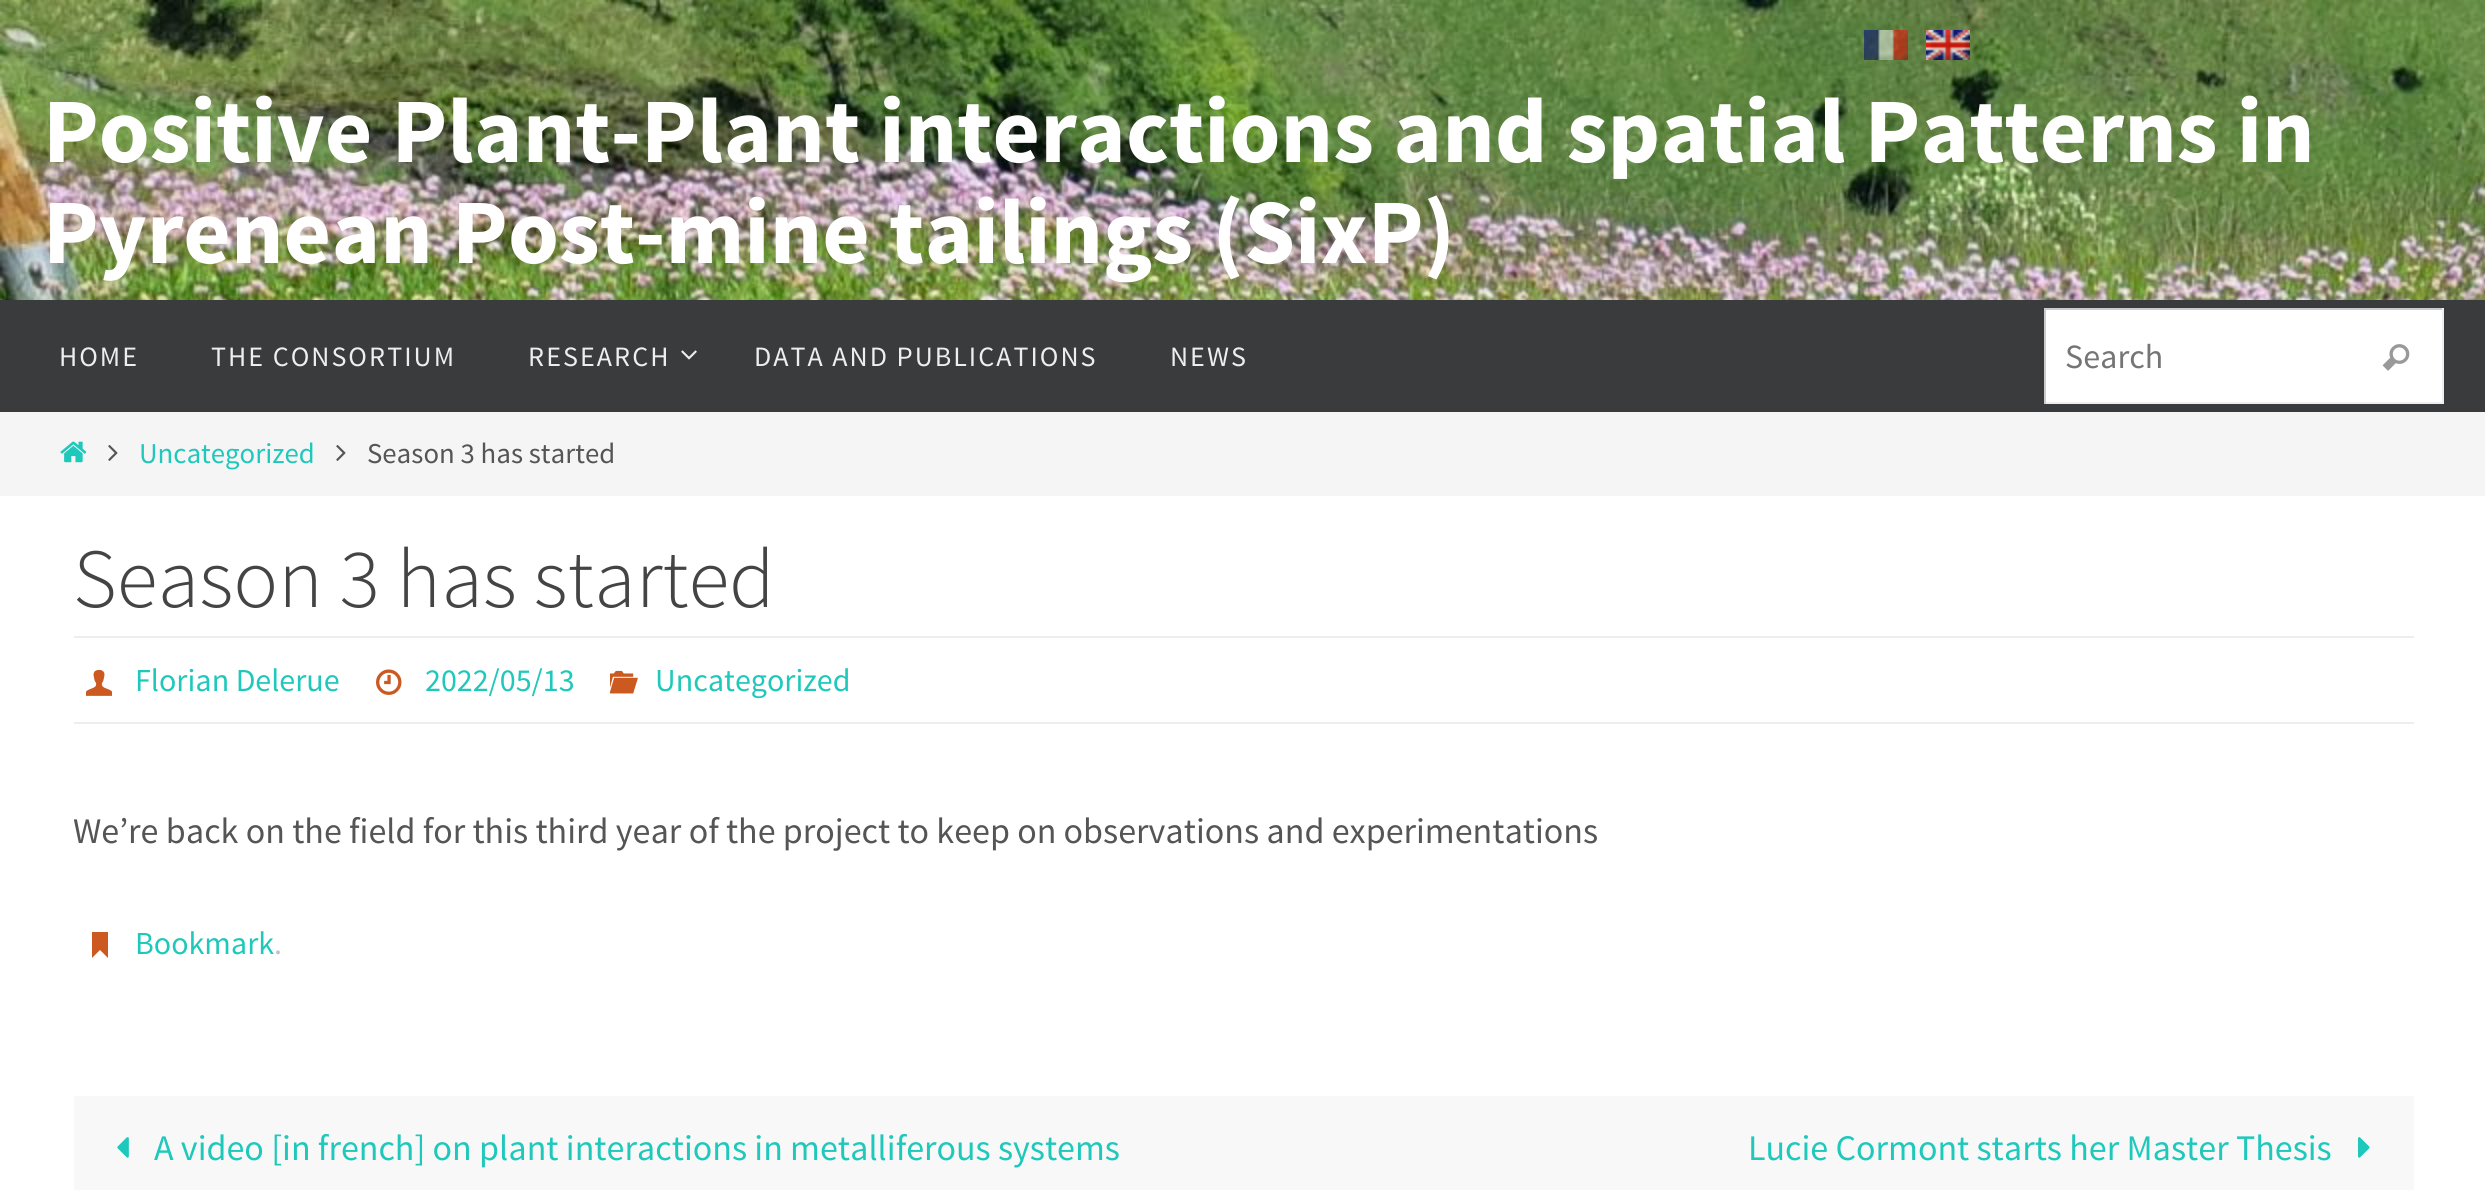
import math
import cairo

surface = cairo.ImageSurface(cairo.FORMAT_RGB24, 2485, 1190)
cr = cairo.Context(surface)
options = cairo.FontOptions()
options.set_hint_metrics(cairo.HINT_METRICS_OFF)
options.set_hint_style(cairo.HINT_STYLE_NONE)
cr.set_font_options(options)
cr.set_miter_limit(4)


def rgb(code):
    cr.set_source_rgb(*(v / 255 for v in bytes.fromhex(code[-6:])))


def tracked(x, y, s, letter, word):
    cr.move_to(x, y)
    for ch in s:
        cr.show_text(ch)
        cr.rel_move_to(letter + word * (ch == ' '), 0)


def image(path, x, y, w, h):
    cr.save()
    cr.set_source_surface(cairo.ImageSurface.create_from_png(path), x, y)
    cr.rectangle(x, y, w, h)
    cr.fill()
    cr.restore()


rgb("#ffffff")
cr.paint()
image("img/1.png", 0, 0, 2485, 300)
image("img/2.png", 1864, 30, 44, 30)
image("img/3.png", 1926, 30, 44, 30)
rgb("#3a3b3d")
cr.rectangle(0, 300, 2485, 112)
cr.fill()
image("img/4.png", 681, 350, 16, 10)
for x, y, w, h, color in [
    (2046, 310, 396, 92, "#ffffff"),
    (2044, 308, 400, 2, "#cccccc"),
    (2442, 308, 2, 96, "#eeeeee"),
    (2044, 402, 400, 2, "#eeeeee"),
    (2044, 308, 2, 96, "#cccccc"),
]:
    rgb(color)
    cr.rectangle(x, y, w, h)
    cr.fill()
image("img/5.png", 2382, 344, 28, 27)
rgb("#f5f5f5")
cr.rectangle(0, 412, 2485, 84)
cr.fill()
image("img/6.png", 60, 441, 27, 22)
image("img/7.png", 108, 445, 10, 16)
image("img/7.png", 336, 445, 10, 16)
rgb("#eeeeee")
cr.rectangle(74, 636, 2340, 2)
cr.fill()
cr.rectangle(74, 722, 2340, 2)
cr.fill()
image("img/8.png", 86, 669, 26, 27)
image("img/9.png", 376, 669, 26, 26)
image("img/10.png", 610, 670, 28, 24)
rgb("#cb5920")
cr.new_path()
cr.move_to(92, 955.5)
cr.line_to(92, 932)
cr.line_to(108, 932)
cr.line_to(108, 958)
cr.line_to(100, 950)
cr.line_to(92, 958)
cr.close_path()
cr.fill()
rgb("#f8f8f8")
cr.rectangle(74, 1096, 2340, 94)
cr.fill()
image("img/11.png", 117, 1137, 12, 21)
image("img/12.png", 2358, 1137, 12, 21)
cr.select_font_face("Source Sans Pro", cairo.FONT_SLANT_NORMAL, cairo.FONT_WEIGHT_BOLD)
cr.set_font_size(92)
rgb("#ffffff")
cr.move_to(43, 162)
cr.show_text("Positive Plant-Plant interactions and spatial Patterns in")
cr.move_to(43, 263)
cr.show_text("Pyrenean Post-mine tailings (SixP)")
cr.select_font_face("Source Sans Pro")
cr.set_font_size(28)
rgb("#eeeeee")
for x, y, s in [
    (59, 366, "HOME"),
    (211, 366, "THE CONSORTIUM"),
    (528, 366, "RESEARCH"),
    (754, 366, "DATA AND PUBLICATIONS"),
    (1170, 366, "NEWS"),
]:
    tracked(x, y, s, 2, 0)
cr.set_font_size(34)
rgb("#757575")
cr.move_to(2065, 368)
cr.show_text("Search")
cr.set_font_size(28.75)
rgb("#1ec8bb")
cr.move_to(139, 463)
cr.show_text("Uncategorized")
rgb("#555555")
cr.move_to(367, 463)
cr.show_text("Season 3 has started")
cr.select_font_face("Source Sans Pro Light")
cr.set_font_size(84)
rgb("#444444")
cr.move_to(73, 607)
cr.show_text("Season 3 has started")
cr.select_font_face("Source Sans Pro")
cr.set_font_size(32)
rgb("#1ec8bb")
for x, y, s in [
    (135, 691, "Florian Delerue"),
    (425, 691, "2022/05/13"),
    (655, 691, "Uncategorized"),
]:
    cr.move_to(x, y)
    cr.show_text(s)
cr.set_font_size(36)
rgb("#555555")
cr.move_to(73, 843)
cr.show_text("We’re back on the field for this third year of the project to keep on observations and experimentations")
cr.set_font_size(32)
rgb("#1ec8bb")
cr.move_to(135, 954)
cr.show_text("Bookmark")
rgb("#c1c1c1")
cr.move_to(274, 954)
cr.show_text(".")
cr.set_font_size(36)
rgb("#1ec8bb")
cr.move_to(154, 1160)
cr.show_text("A video [in french] on plant interactions in metalliferous systems")
cr.move_to(1748, 1160)
cr.show_text("Lucie Cormont starts her Master Thesis")
surface.write_to_png("page.png")
